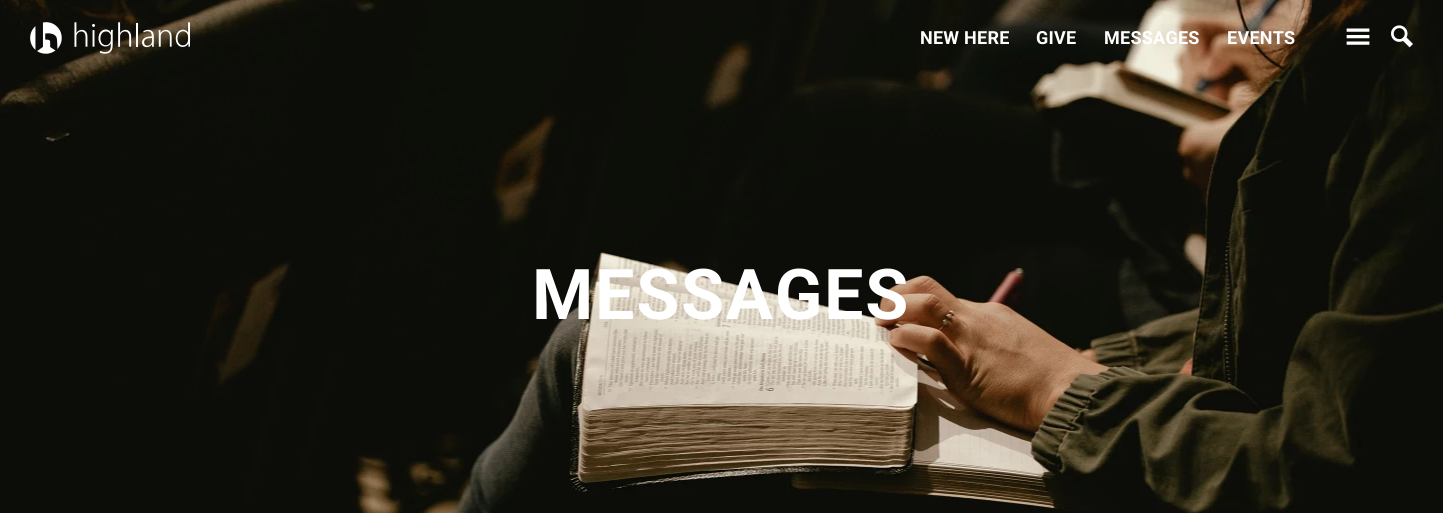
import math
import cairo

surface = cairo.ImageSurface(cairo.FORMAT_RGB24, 1443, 513)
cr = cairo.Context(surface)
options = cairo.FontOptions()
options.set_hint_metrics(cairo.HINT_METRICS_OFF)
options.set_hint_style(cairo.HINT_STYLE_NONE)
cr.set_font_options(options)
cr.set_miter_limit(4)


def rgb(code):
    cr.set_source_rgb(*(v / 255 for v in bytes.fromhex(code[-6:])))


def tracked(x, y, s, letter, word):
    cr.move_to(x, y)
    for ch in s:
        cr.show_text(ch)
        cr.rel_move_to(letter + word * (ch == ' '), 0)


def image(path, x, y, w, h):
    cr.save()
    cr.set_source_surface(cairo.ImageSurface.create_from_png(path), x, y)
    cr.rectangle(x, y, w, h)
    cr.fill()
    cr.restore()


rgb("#ffffff")
cr.paint()
image("img/4.png", 0, 0, 1443, 513)
image("img/1.png", 30, 22, 160, 32)
image("img/2.png", 1346, 28, 24, 17)
image("img/3.png", 1391, 25, 22, 23)
cr.select_font_face("Roboto", cairo.FONT_SLANT_NORMAL, cairo.FONT_WEIGHT_BOLD)
cr.set_font_size(18)
rgb("#ffffff")
for x, y, s in [
    (920, 44, "NEW HERE"),
    (1036, 44, "GIVE"),
    (1104, 44, "MESSAGES"),
    (1227, 44, "EVENTS"),
]:
    tracked(x, y, s, 0.25, 0)
cr.set_font_size(70)
tracked(532, 319, "MESSAGES", 1.75, 0)
surface.write_to_png("page.png")
